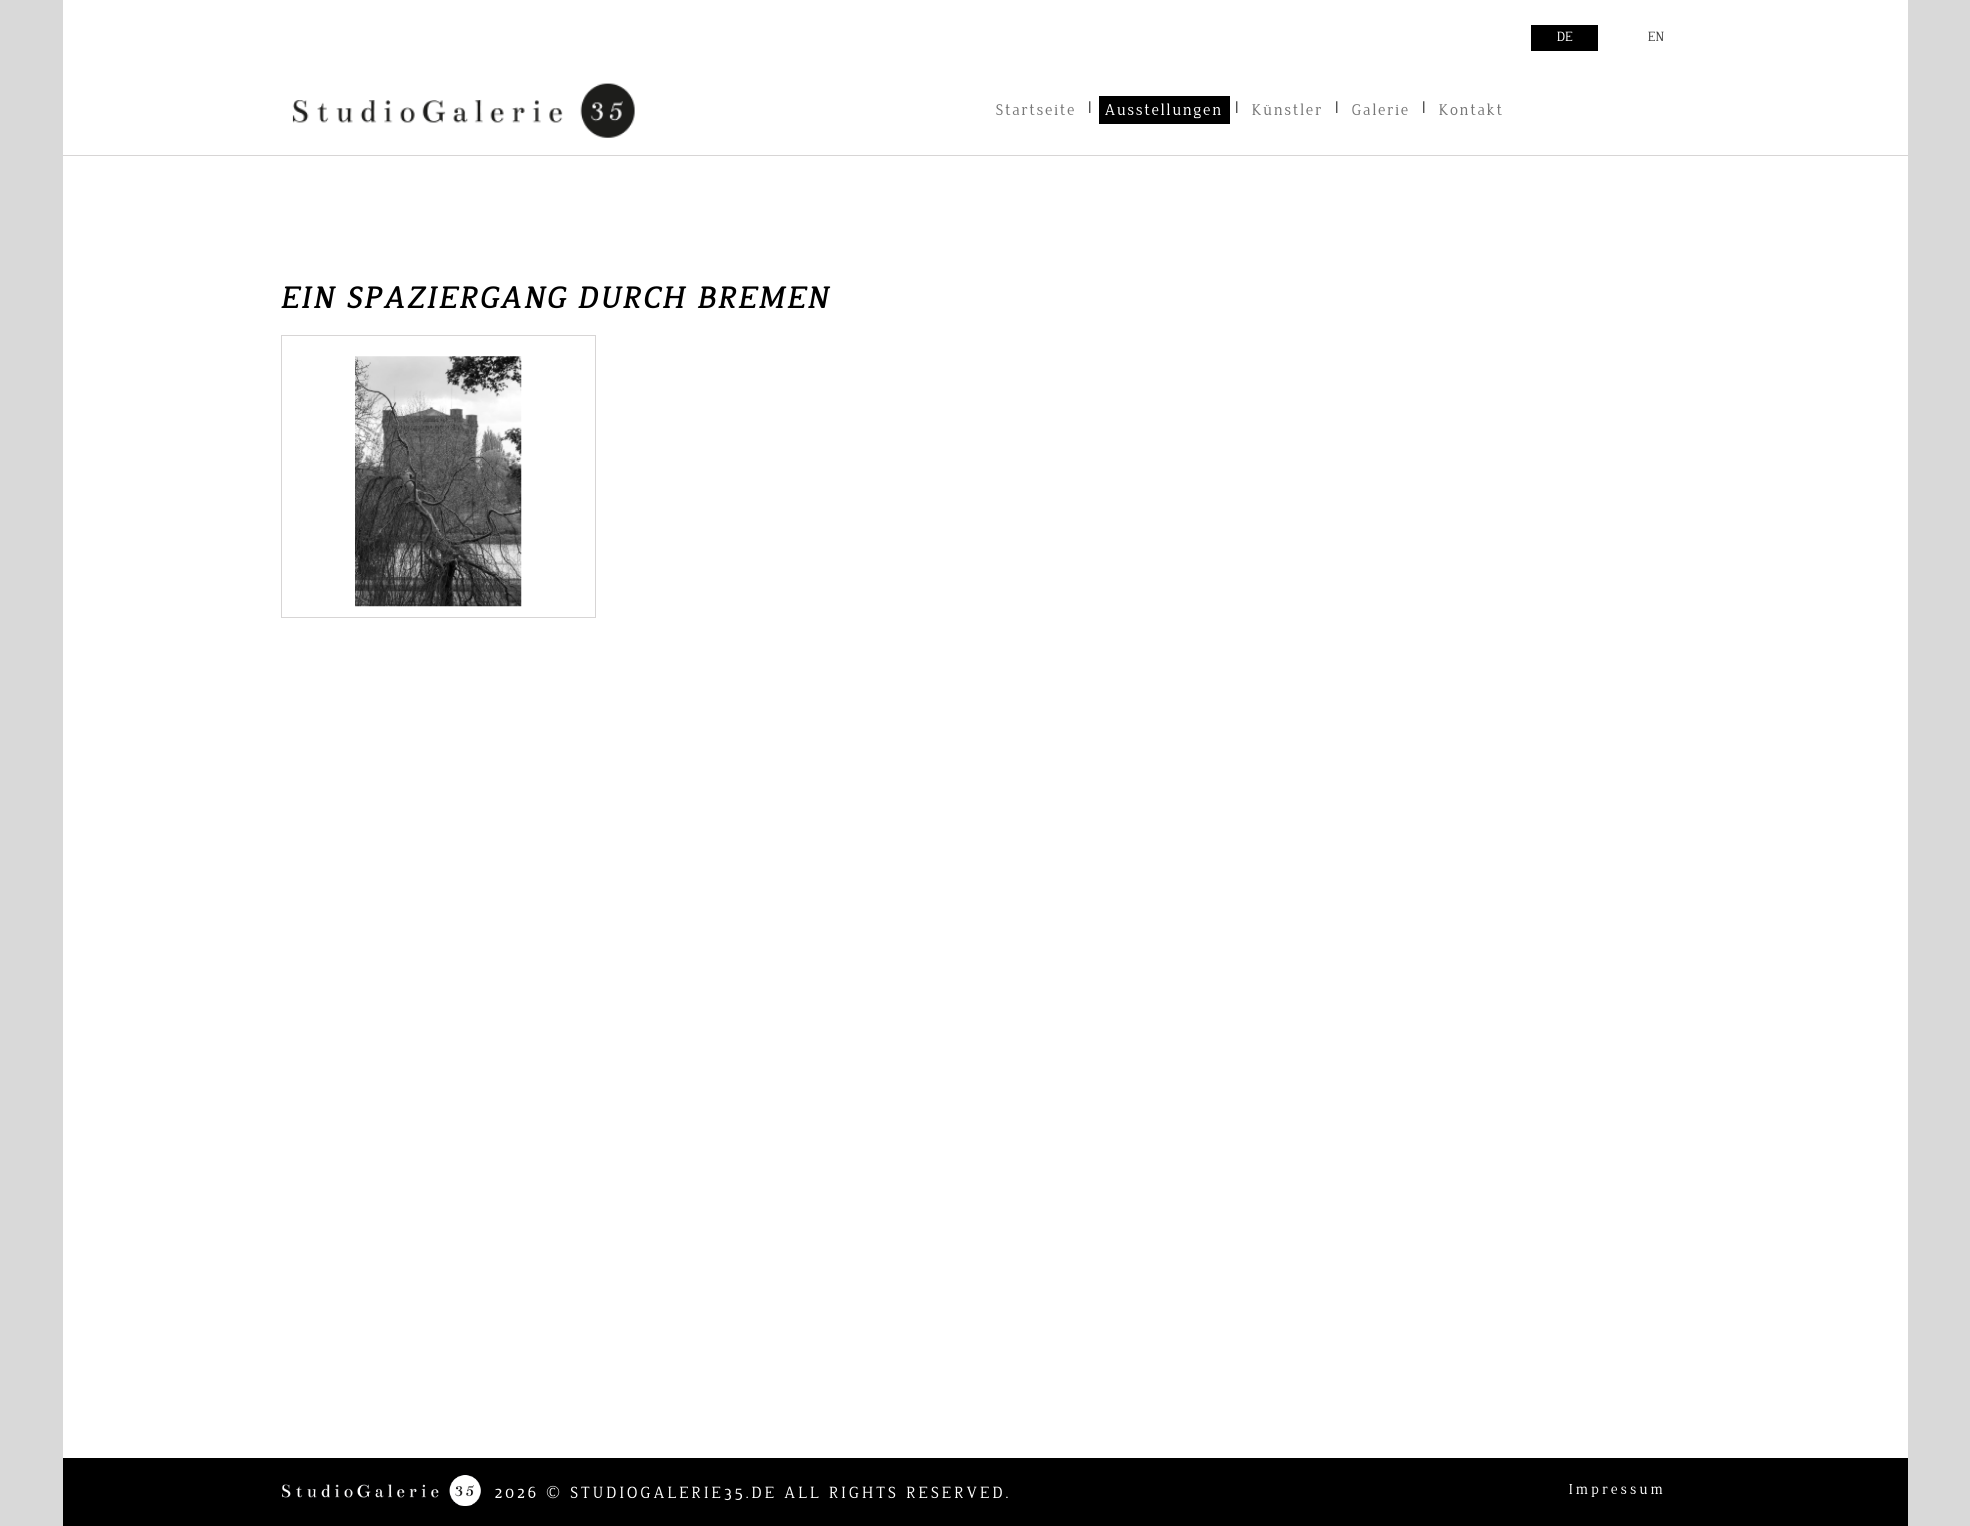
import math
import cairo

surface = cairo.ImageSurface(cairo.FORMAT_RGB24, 1970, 1526)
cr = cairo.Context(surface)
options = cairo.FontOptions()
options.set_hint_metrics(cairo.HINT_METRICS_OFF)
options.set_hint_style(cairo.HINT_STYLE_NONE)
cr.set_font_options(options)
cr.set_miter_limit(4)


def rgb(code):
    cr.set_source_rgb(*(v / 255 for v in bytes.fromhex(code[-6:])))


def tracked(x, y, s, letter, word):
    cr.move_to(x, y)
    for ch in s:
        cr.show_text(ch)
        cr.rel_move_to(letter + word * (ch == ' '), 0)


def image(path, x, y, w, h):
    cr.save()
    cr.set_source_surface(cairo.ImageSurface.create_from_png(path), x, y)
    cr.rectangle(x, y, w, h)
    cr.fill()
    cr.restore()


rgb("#d9d9d9")
cr.paint()
rgb("#ffffff")
cr.rectangle(63, 0, 1845, 1458)
cr.fill()
rgb("#000000")
cr.rectangle(1531, 25, 67, 26)
cr.fill()
image("img/1.png", 292, 83, 343, 55)
cr.rectangle(1099, 96, 131, 28)
cr.fill()
rgb("#d7d5d5")
cr.rectangle(63, 155, 1845, 1)
cr.fill()
cr.rectangle(281.5, 335.5, 314, 282)
cr.set_line_width(1)
cr.stroke()
image("img/2.png", 355, 356, 167, 251)
rgb("#000000")
cr.rectangle(63, 1458, 1845, 68)
cr.fill()
image("img/3.png", 282, 1475, 199, 31)
cr.select_font_face("Jura")
cr.set_font_size(14)
rgb("#ffffff")
cr.move_to(1557, 41)
cr.show_text("DE")
rgb("#444444")
cr.move_to(1648, 41)
cr.show_text("EN")
cr.set_font_size(16.25)
rgb("#777777")
tracked(996, 115, "Startseite", 1.6, 0)
rgb("#000000")
tracked(1089, 113, "|", 1.6, 0)
rgb("#ffffff")
tracked(1105, 115, "Ausstellungen", 1.6, 0)
rgb("#000000")
tracked(1236, 113, "|", 1.6, 0)
rgb("#777777")
tracked(1252, 115, "Künstler", 1.6, 0)
rgb("#000000")
tracked(1336, 113, "|", 1.6, 0)
rgb("#777777")
tracked(1352, 115, "Galerie", 1.6, 0)
rgb("#000000")
tracked(1423, 113, "|", 1.6, 0)
rgb("#777777")
tracked(1439, 115, "Kontakt", 1.6, 0)
cr.select_font_face("Jura", cairo.FONT_SLANT_ITALIC, cairo.FONT_WEIGHT_BOLD)
cr.set_font_size(32.5)
rgb("#000000")
tracked(281, 308, "EIN SPAZIERGANG DURCH BREMEN", 1.6, 0)
cr.select_font_face("Jura")
cr.set_font_size(17)
rgb("#ffffff")
tracked(495, 1498, "2026 © STUDIOGALERIE35.DE ALL RIGHTS RESERVED.", 3, 0)
cr.set_font_size(15)
tracked(1569, 1494, "Impressum", 3, 0)
surface.write_to_png("page.png")
